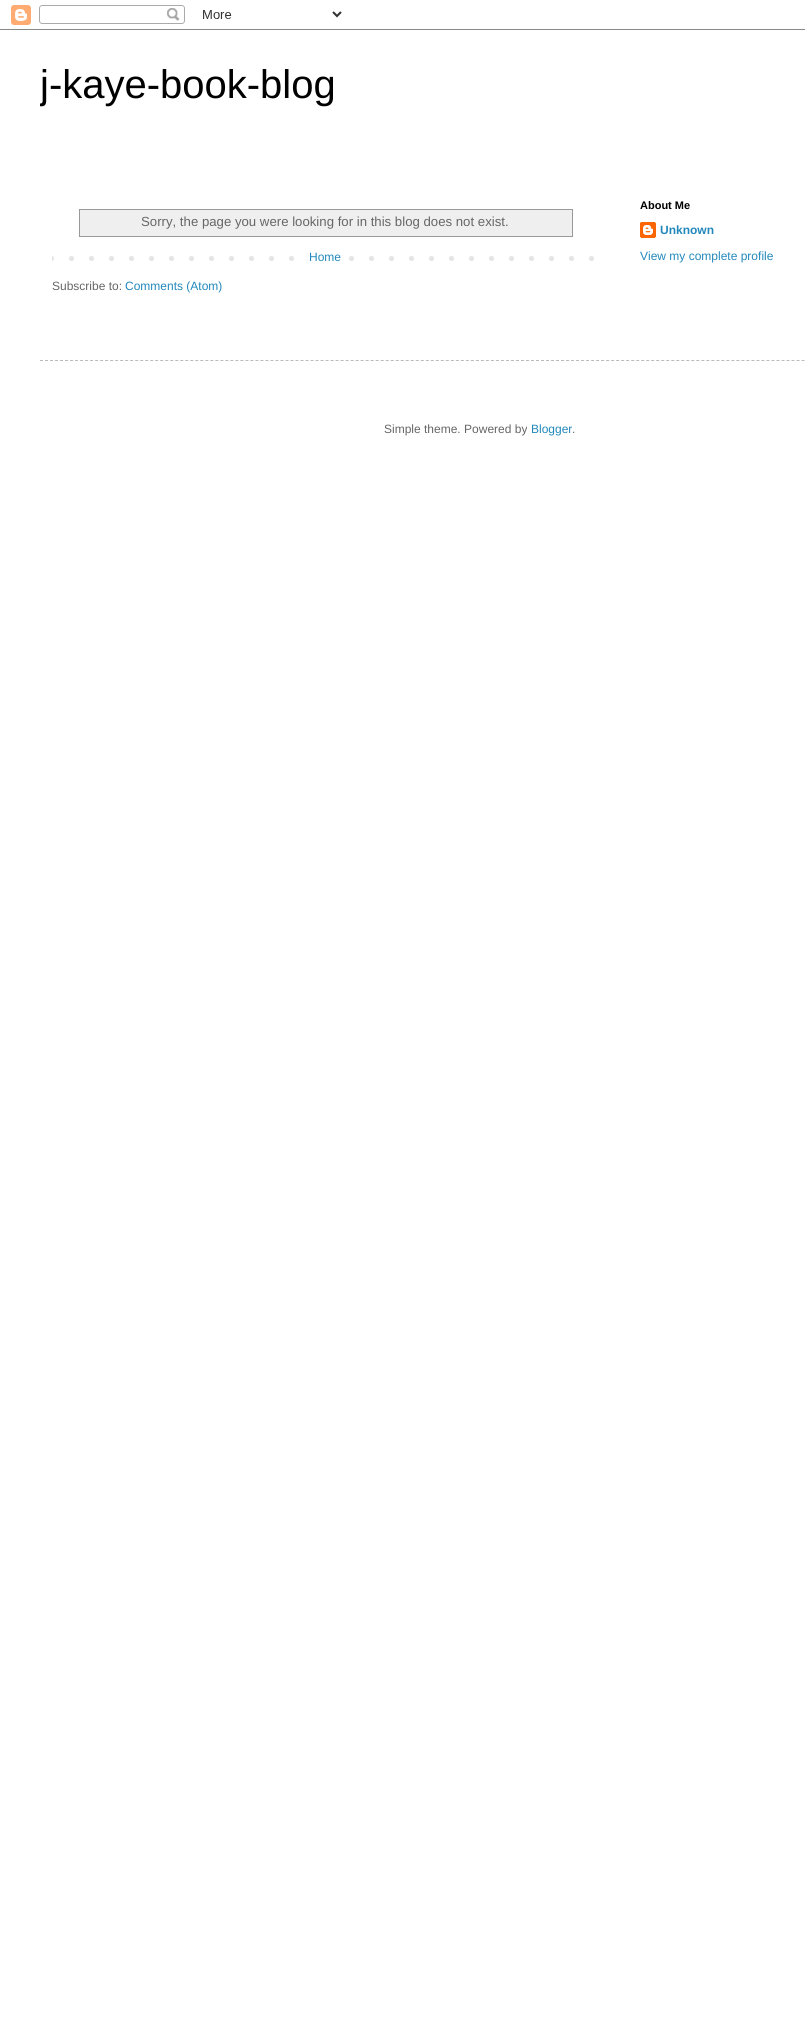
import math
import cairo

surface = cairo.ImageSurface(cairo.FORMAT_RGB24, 805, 2028)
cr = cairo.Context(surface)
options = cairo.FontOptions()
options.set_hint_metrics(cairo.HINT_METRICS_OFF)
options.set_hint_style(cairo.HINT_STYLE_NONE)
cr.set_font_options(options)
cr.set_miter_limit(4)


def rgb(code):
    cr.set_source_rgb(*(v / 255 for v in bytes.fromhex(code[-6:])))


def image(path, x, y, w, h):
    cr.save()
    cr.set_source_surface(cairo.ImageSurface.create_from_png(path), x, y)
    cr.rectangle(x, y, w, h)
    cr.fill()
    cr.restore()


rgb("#ffffff")
cr.paint()
image("img/1.png", 0, 5, 805, 25)
cr.rectangle(79.5, 209.5, 493, 27)
rgb("#999999")
cr.set_line_width(1)
cr.stroke()
rgb("#efefef")
cr.rectangle(80, 210, 492, 26)
cr.fill()
image("img/2.png", 52, 256, 542, 5)
rgb("#ffffff")
cr.rectangle(309, 256, 26, 5)
cr.fill()
image("img/3.png", 640, 222, 16, 16)
cr.new_path()
cr.move_to(40, 360.5)
cr.line_to(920, 360.5)
rgb("#bbbbbb")
cr.set_dash([3, 2.01])
cr.stroke()
cr.save()
cr.rectangle(40, 40, 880, 124)
cr.clip()
cr.select_font_face("Liberation Sans")
cr.set_font_size(40)
rgb("#000000")
cr.move_to(40, 98)
cr.show_text("j-kaye-book-blog")
cr.restore()
cr.select_font_face("Liberation Sans")
cr.set_font_size(13.2)
rgb("#666666")
cr.move_to(141, 226)
cr.show_text("Sorry, the page you were looking for in this blog does not exist.")
cr.set_font_size(12)
rgb("#2288bb")
cr.move_to(309, 261)
cr.show_text("Home")
rgb("#666666")
cr.move_to(52, 290)
cr.show_text("Subscribe to:")
rgb("#2288bb")
cr.move_to(125, 290)
cr.show_text("Comments (Atom)")
cr.select_font_face("Liberation Sans", cairo.FONT_SLANT_NORMAL, cairo.FONT_WEIGHT_BOLD)
cr.set_font_size(11)
rgb("#000000")
cr.move_to(640, 209)
cr.show_text("About Me")
cr.set_font_size(12)
rgb("#2288bb")
cr.move_to(660, 234)
cr.show_text("Unknown")
cr.select_font_face("Liberation Sans")
cr.move_to(640, 260)
cr.show_text("View my complete profile")
rgb("#666666")
cr.move_to(384, 433)
cr.show_text("Simple theme. Powered by")
rgb("#2288bb")
cr.move_to(531, 433)
cr.show_text("Blogger")
rgb("#666666")
cr.move_to(572, 433)
cr.show_text(".")
surface.write_to_png("page.png")
